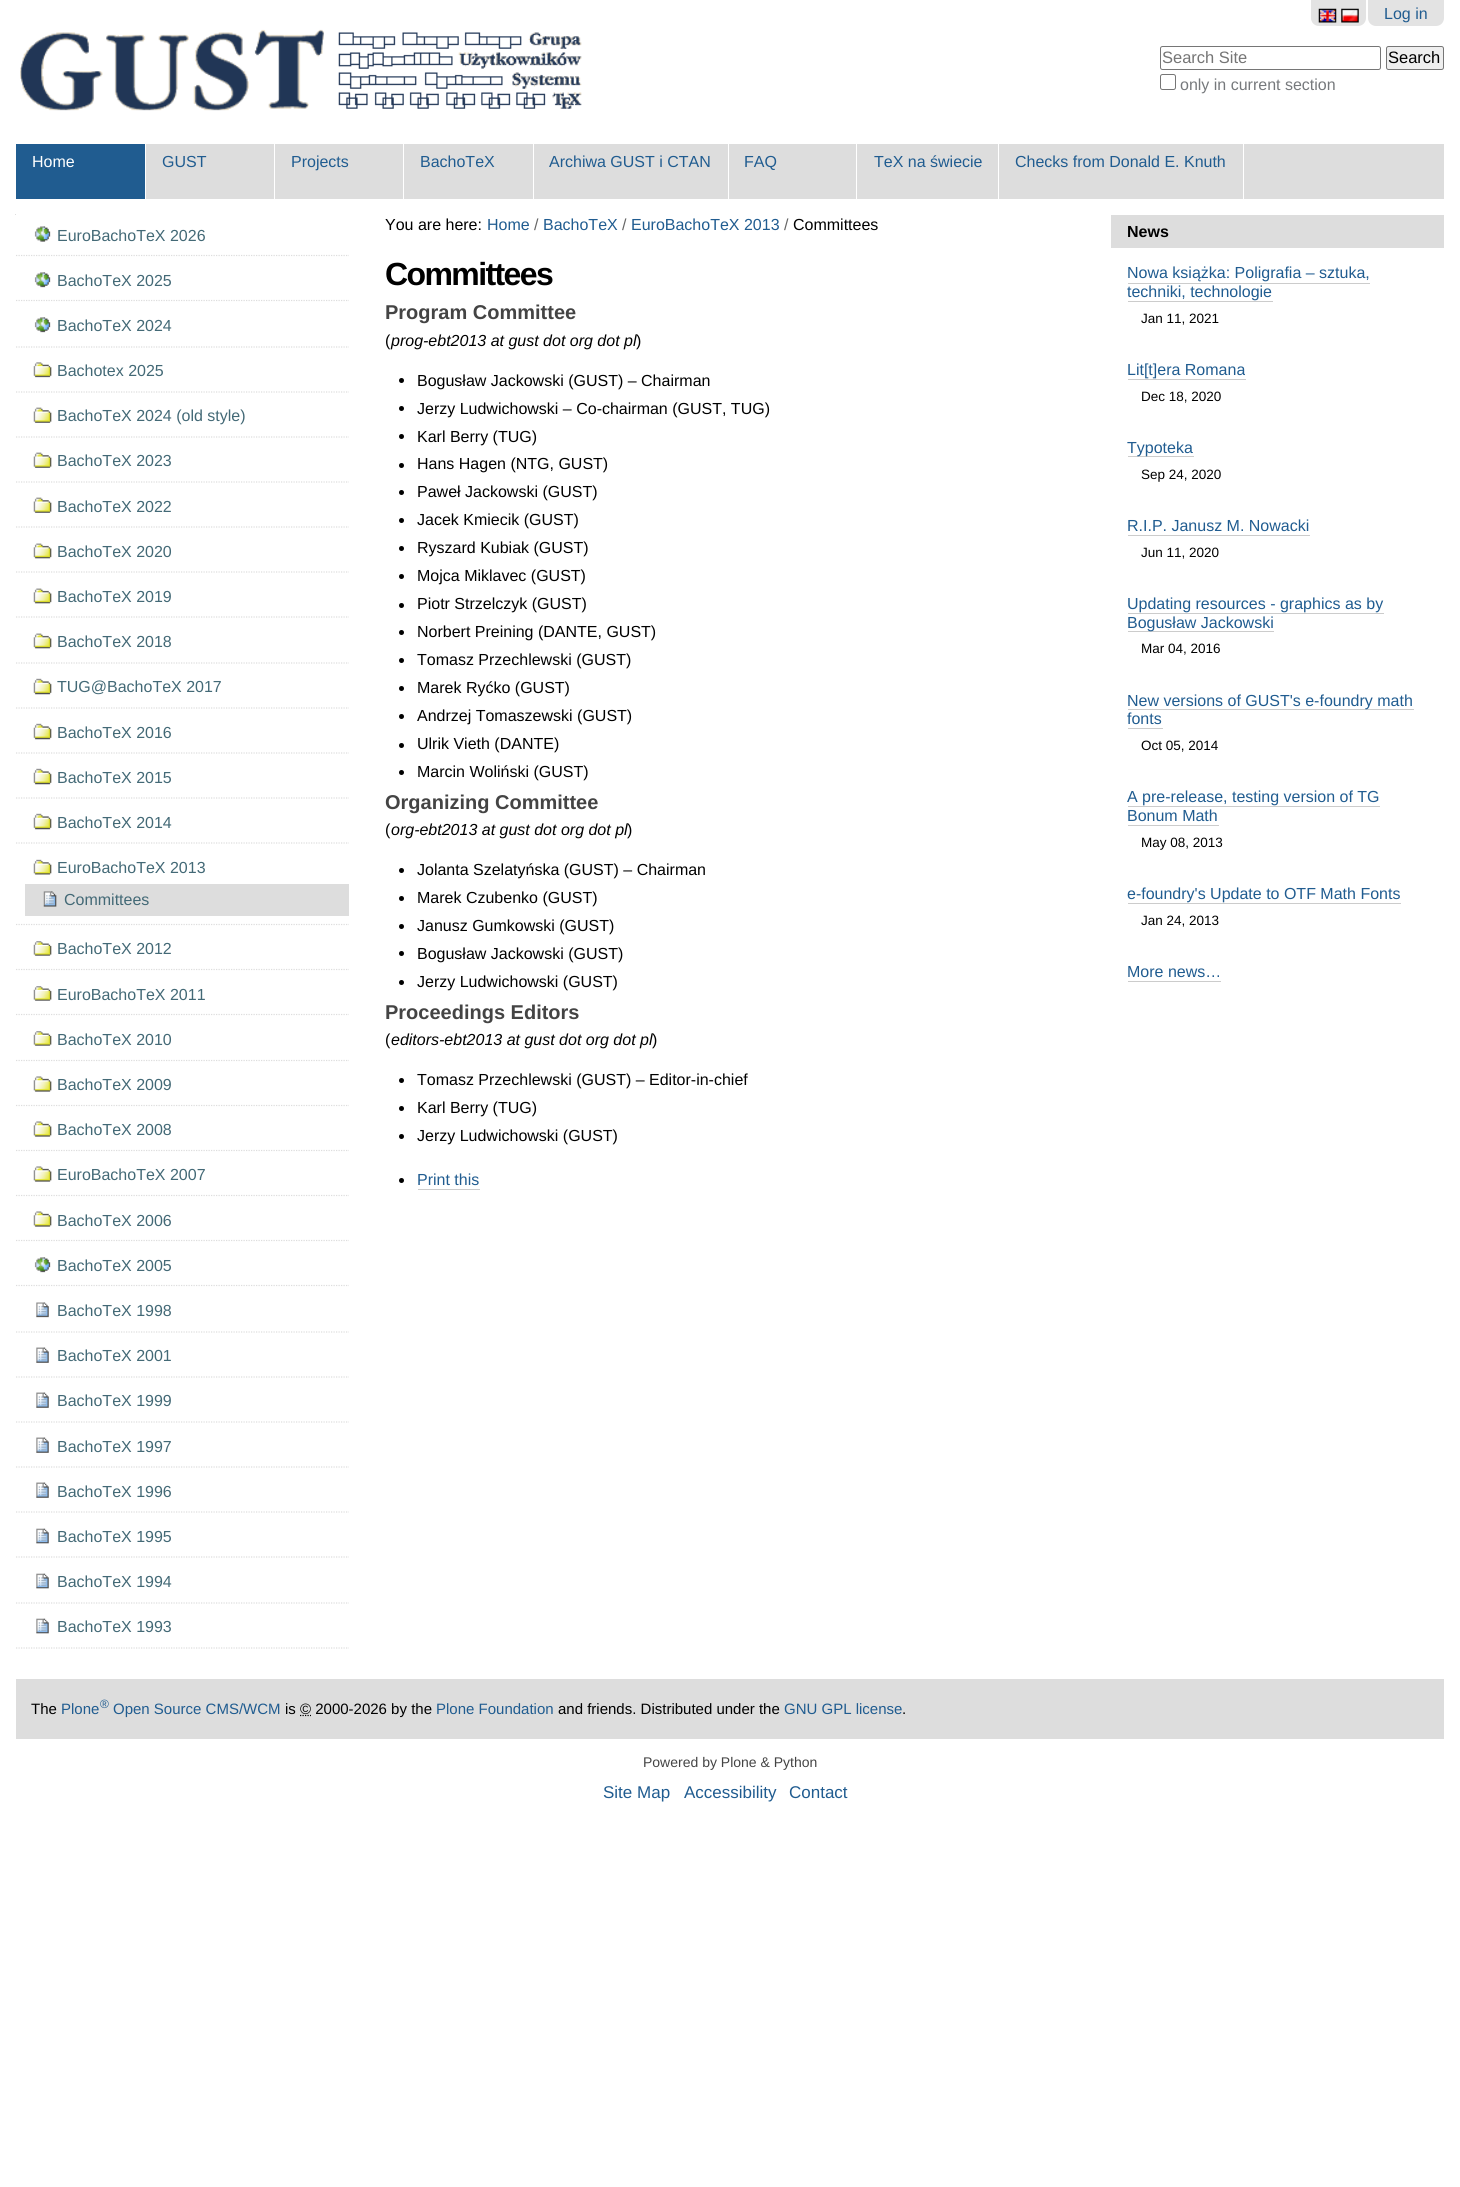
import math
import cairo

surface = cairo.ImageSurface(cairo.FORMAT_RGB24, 1460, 2187)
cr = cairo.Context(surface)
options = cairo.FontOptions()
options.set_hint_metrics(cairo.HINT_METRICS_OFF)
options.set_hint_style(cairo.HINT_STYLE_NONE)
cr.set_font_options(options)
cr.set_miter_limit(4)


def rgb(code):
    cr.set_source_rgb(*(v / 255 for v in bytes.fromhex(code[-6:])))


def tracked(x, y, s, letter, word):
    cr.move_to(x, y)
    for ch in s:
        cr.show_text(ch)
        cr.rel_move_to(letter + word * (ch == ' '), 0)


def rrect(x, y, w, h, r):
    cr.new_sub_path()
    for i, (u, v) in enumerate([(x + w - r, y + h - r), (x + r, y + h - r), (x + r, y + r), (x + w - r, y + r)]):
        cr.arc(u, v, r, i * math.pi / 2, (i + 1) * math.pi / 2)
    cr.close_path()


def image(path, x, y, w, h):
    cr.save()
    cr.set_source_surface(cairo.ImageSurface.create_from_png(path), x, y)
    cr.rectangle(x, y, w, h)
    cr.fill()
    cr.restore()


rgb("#ffffff")
cr.paint()
rgb("#e3e3e3")
cr.new_path()
cr.move_to(1311, 0)
cr.line_to(1366, 0)
cr.line_to(1366, 18)
cr.curve_to(1366, 22.5, 1362.5, 26, 1358, 26)
cr.line_to(1319, 26)
cr.curve_to(1314.5, 26, 1311, 22.5, 1311, 18)
cr.close_path()
cr.fill()
image("img/1.png", 1318, 8, 19, 15)
image("img/2.png", 1341, 8, 18, 15)
cr.new_path()
cr.move_to(1368, 0)
cr.line_to(1444, 0)
cr.line_to(1444, 18)
cr.curve_to(1444, 22.5, 1440.5, 26, 1436, 26)
cr.line_to(1376, 26)
cr.curve_to(1371.5, 26, 1368, 22.5, 1368, 18)
cr.close_path()
cr.fill()
image("img/3.png", 20, 29, 562, 82)
rrect(1160.5, 46.5, 220, 23, 2)
rgb("#767676")
cr.set_line_width(1)
cr.stroke()
rgb("#efefef")
rrect(1386.5, 46.5, 57, 23, 2)
cr.fill_preserve()
rgb("#767676")
cr.stroke()
rrect(1160.5, 74.5, 15, 15, 2)
cr.stroke()
for x, y, w, h, color in [
    (146, 144, 1298, 55, "#dddddd"),
    (16, 144, 129, 55, "#205c90"),
    (274, 144, 1, 55, "#ffffff"),
    (403, 144, 1, 55, "#ffffff"),
    (533, 144, 1, 55, "#ffffff"),
    (728, 144, 1, 55, "#ffffff"),
    (856, 144, 1, 55, "#ffffff"),
    (998, 144, 1, 55, "#ffffff"),
    (1243, 144, 1, 55, "#ffffff"),
    (15, 214, 1, 1, "#dddddd"),
]:
    rgb(color)
    cr.rectangle(x, y, w, h)
    cr.fill()
cr.new_path()
cr.move_to(16, 255.5)
cr.line_to(349, 255.5)
cr.set_line_width(1.2)
cr.set_dash([1.25, 1.25])
cr.stroke()
image("img/4.png", 34, 226, 17, 16)
cr.new_path()
cr.move_to(16, 300.5)
cr.line_to(349, 300.5)
cr.stroke()
image("img/5.png", 34, 272, 17, 16)
cr.new_path()
cr.move_to(16, 347)
cr.line_to(349, 347)
cr.stroke()
image("img/5.png", 34, 317, 17, 16)
cr.new_path()
cr.move_to(16, 392)
cr.line_to(349, 392)
cr.stroke()
image("img/6.png", 33, 362, 19, 16)
cr.new_path()
cr.move_to(16, 437)
cr.line_to(349, 437)
cr.stroke()
image("img/7.png", 33, 407, 19, 16)
cr.new_path()
cr.move_to(16, 482)
cr.line_to(349, 482)
cr.stroke()
image("img/7.png", 33, 452, 19, 16)
cr.new_path()
cr.move_to(16, 527)
cr.line_to(349, 527)
cr.stroke()
image("img/7.png", 33, 497, 19, 16)
cr.new_path()
cr.move_to(16, 572)
cr.line_to(349, 572)
cr.stroke()
image("img/8.png", 33, 543, 19, 16)
cr.new_path()
cr.move_to(16, 617)
cr.line_to(349, 617)
cr.stroke()
image("img/8.png", 33, 588, 19, 16)
cr.new_path()
cr.move_to(16, 663)
cr.line_to(349, 663)
cr.stroke()
image("img/8.png", 33, 633, 19, 16)
cr.new_path()
cr.move_to(16, 708)
cr.line_to(349, 708)
cr.stroke()
image("img/9.png", 33, 678, 19, 17)
cr.new_path()
cr.move_to(16, 753)
cr.line_to(349, 753)
cr.stroke()
image("img/9.png", 33, 723, 19, 17)
cr.new_path()
cr.move_to(16, 798)
cr.line_to(349, 798)
cr.stroke()
image("img/9.png", 33, 768, 19, 17)
cr.new_path()
cr.move_to(16, 843)
cr.line_to(349, 843)
cr.stroke()
image("img/9.png", 33, 813, 19, 17)
cr.new_path()
cr.move_to(16, 924.5)
cr.line_to(349, 924.5)
cr.stroke()
image("img/10.png", 33, 859, 19, 16)
cr.rectangle(25, 884, 324, 32)
cr.fill()
image("img/11.png", 43, 891, 14, 16)
cr.new_path()
cr.move_to(16, 969.5)
cr.line_to(349, 969.5)
cr.stroke()
image("img/12.png", 33, 941, 19, 15)
cr.new_path()
cr.move_to(16, 1014.5)
cr.line_to(349, 1014.5)
cr.stroke()
image("img/12.png", 33, 986, 19, 15)
cr.new_path()
cr.move_to(16, 1060.5)
cr.line_to(349, 1060.5)
cr.stroke()
image("img/12.png", 33, 1031, 19, 15)
cr.new_path()
cr.move_to(16, 1105.5)
cr.line_to(349, 1105.5)
cr.stroke()
image("img/13.png", 33, 1076, 19, 16)
cr.new_path()
cr.move_to(16, 1150.5)
cr.line_to(349, 1150.5)
cr.stroke()
image("img/13.png", 33, 1121, 19, 16)
cr.new_path()
cr.move_to(16, 1195.5)
cr.line_to(349, 1195.5)
cr.stroke()
image("img/13.png", 33, 1166, 19, 16)
cr.new_path()
cr.move_to(16, 1240.5)
cr.line_to(349, 1240.5)
cr.stroke()
image("img/13.png", 33, 1211, 19, 16)
cr.new_path()
cr.move_to(16, 1285.5)
cr.line_to(349, 1285.5)
cr.stroke()
image("img/5.png", 34, 1257, 17, 16)
cr.new_path()
cr.move_to(16, 1332)
cr.line_to(349, 1332)
cr.stroke()
image("img/14.png", 36, 1302, 13, 16)
cr.new_path()
cr.move_to(16, 1377)
cr.line_to(349, 1377)
cr.stroke()
image("img/15.png", 36, 1347, 13, 16)
cr.new_path()
cr.move_to(16, 1422)
cr.line_to(349, 1422)
cr.stroke()
image("img/15.png", 36, 1392, 13, 16)
cr.new_path()
cr.move_to(16, 1467)
cr.line_to(349, 1467)
cr.stroke()
image("img/15.png", 36, 1437, 13, 16)
cr.new_path()
cr.move_to(16, 1512)
cr.line_to(349, 1512)
cr.stroke()
image("img/15.png", 36, 1482, 13, 16)
cr.new_path()
cr.move_to(16, 1557)
cr.line_to(349, 1557)
cr.stroke()
image("img/16.png", 36, 1528, 13, 16)
cr.new_path()
cr.move_to(16, 1603)
cr.line_to(349, 1603)
cr.stroke()
image("img/16.png", 36, 1573, 13, 16)
cr.new_path()
cr.move_to(16, 1648)
cr.line_to(349, 1648)
cr.stroke()
image("img/16.png", 36, 1618, 13, 16)
rgb("#000000")
cr.arc(401.5, 380.5, 2.5, 0, 2 * math.pi)
cr.fill()
cr.arc(401.5, 408.5, 2.5, 0, 2 * math.pi)
cr.fill()
cr.arc(401.5, 436.5, 2.5, 0, 2 * math.pi)
cr.fill()
cr.arc(401.5, 465.5, 2.5, 0, 2 * math.pi)
cr.fill()
cr.arc(401.5, 492.5, 2.5, 0, 2 * math.pi)
cr.fill()
cr.arc(401.5, 520.5, 2.5, 0, 2 * math.pi)
cr.fill()
cr.arc(401.5, 548.5, 2.5, 0, 2 * math.pi)
cr.fill()
cr.arc(401.5, 576.5, 2.5, 0, 2 * math.pi)
cr.fill()
cr.arc(401.5, 605.5, 2.5, 0, 2 * math.pi)
cr.fill()
cr.arc(401.5, 632.5, 2.5, 0, 2 * math.pi)
cr.fill()
cr.arc(401.5, 660.5, 2.5, 0, 2 * math.pi)
cr.fill()
cr.arc(401.5, 688.5, 2.5, 0, 2 * math.pi)
cr.fill()
cr.arc(401.5, 716.5, 2.5, 0, 2 * math.pi)
cr.fill()
cr.arc(401.5, 745.5, 2.5, 0, 2 * math.pi)
cr.fill()
cr.arc(401.5, 772.5, 2.5, 0, 2 * math.pi)
cr.fill()
cr.arc(401.5, 870.5, 2.5, 0, 2 * math.pi)
cr.fill()
cr.arc(401.5, 898.5, 2.5, 0, 2 * math.pi)
cr.fill()
cr.arc(401.5, 926.5, 2.5, 0, 2 * math.pi)
cr.fill()
cr.arc(401.5, 953.5, 2.5, 0, 2 * math.pi)
cr.fill()
cr.arc(401.5, 982.5, 2.5, 0, 2 * math.pi)
cr.fill()
cr.arc(401.5, 1080.5, 2.5, 0, 2 * math.pi)
cr.fill()
cr.arc(401.5, 1108.5, 2.5, 0, 2 * math.pi)
cr.fill()
cr.arc(401.5, 1136.5, 2.5, 0, 2 * math.pi)
cr.fill()
cr.arc(401.5, 1180.5, 2.5, 0, 2 * math.pi)
cr.fill()
for x, y, w, h, color in [
    (418, 1189, 62, 1, "#cccccc"),
    (1111, 215, 333, 33, "#dddddd"),
    (1128, 283, 242, 1, "#cccccc"),
    (1128, 301, 145, 1, "#cccccc"),
    (1128, 379, 118, 1, "#cccccc"),
    (1128, 456, 66, 1, "#cccccc"),
    (1128, 535, 182, 1, "#cccccc"),
    (1128, 613, 256, 1, "#cccccc"),
    (1128, 631, 146, 1, "#cccccc"),
    (1128, 709, 286, 1, "#cccccc"),
    (1128, 728, 35, 1, "#cccccc"),
    (1128, 806, 252, 1, "#cccccc"),
    (1128, 825, 91, 1, "#cccccc"),
    (1128, 903, 273, 1, "#cccccc"),
    (1128, 981, 93, 1, "#cccccc"),
    (16, 1679, 1428, 60, "#dddddd"),
]:
    rgb(color)
    cr.rectangle(x, y, w, h)
    cr.fill()
cr.new_path()
cr.move_to(300, 1715.5)
cr.line_to(311, 1715.5)
rgb("#000000")
cr.stroke()
cr.select_font_face("Liberation Sans")
cr.set_font_size(16)
rgb("#205c90")
cr.move_to(1384, 19)
cr.show_text("Log in")
cr.set_font_size(16.5)
rgb("#757575")
cr.move_to(1162, 63)
cr.show_text("Search Site")
rgb("#000000")
cr.move_to(1388, 63)
cr.show_text("Search")
cr.set_font_size(16)
rgb("#76797c")
cr.move_to(1180, 90)
cr.show_text("only in current section")
rgb("#ffffff")
cr.move_to(32, 167)
cr.show_text("Home")
rgb("#205c90")
for x, y, s in [
    (162, 167, "GUST"),
    (291, 167, "Projects"),
    (420, 167, "BachoTeX"),
    (549, 167, "Archiwa GUST i CTAN"),
    (744, 167, "FAQ"),
    (874, 167, "TeX na świecie"),
    (1015, 167, "Checks from Donald E. Knuth"),
]:
    cr.move_to(x, y)
    cr.show_text(s)
rgb("#436976")
for x, y, s in [
    (57, 241, "EuroBachoTeX 2026"),
    (57, 286, "BachoTeX 2025"),
    (57, 331, "BachoTeX 2024"),
    (57, 376, "Bachotex 2025"),
    (57, 421, "BachoTeX 2024 (old style)"),
    (57, 466, "BachoTeX 2023"),
    (57, 512, "BachoTeX 2022"),
    (57, 557, "BachoTeX 2020"),
    (57, 602, "BachoTeX 2019"),
    (57, 647, "BachoTeX 2018"),
    (57, 692, "TUG@BachoTeX 2017"),
    (57, 738, "BachoTeX 2016"),
    (57, 783, "BachoTeX 2015"),
    (57, 828, "BachoTeX 2014"),
    (57, 873, "EuroBachoTeX 2013"),
    (64, 905, "Committees"),
    (57, 954, "BachoTeX 2012"),
    (57, 1000, "EuroBachoTeX 2011"),
    (57, 1045, "BachoTeX 2010"),
    (57, 1090, "BachoTeX 2009"),
    (57, 1135, "BachoTeX 2008"),
    (57, 1180, "EuroBachoTeX 2007"),
    (57, 1226, "BachoTeX 2006"),
    (57, 1271, "BachoTeX 2005"),
    (57, 1316, "BachoTeX 1998"),
    (57, 1361, "BachoTeX 2001"),
    (57, 1406, "BachoTeX 1999"),
    (57, 1452, "BachoTeX 1997"),
    (57, 1497, "BachoTeX 1996"),
    (57, 1542, "BachoTeX 1995"),
    (57, 1587, "BachoTeX 1994"),
    (57, 1632, "BachoTeX 1993"),
]:
    cr.move_to(x, y)
    cr.show_text(s)
rgb("#000000")
cr.move_to(385, 230)
cr.show_text("You are here:")
rgb("#205c90")
cr.move_to(487, 230)
cr.show_text("Home")
rgb("#666666")
cr.move_to(534, 230)
cr.show_text("/")
rgb("#205c90")
cr.move_to(543, 230)
cr.show_text("BachoTeX")
rgb("#666666")
cr.move_to(622, 230)
cr.show_text("/")
rgb("#205c90")
cr.move_to(631, 230)
cr.show_text("EuroBachoTeX 2013")
rgb("#666666")
cr.move_to(784, 230)
cr.show_text("/")
rgb("#000000")
cr.move_to(793, 230)
cr.show_text("Committees")
cr.select_font_face("Liberation Sans", cairo.FONT_SLANT_NORMAL, cairo.FONT_WEIGHT_BOLD)
cr.set_font_size(32)
tracked(385, 285, "Committees", -1.6, 0)
cr.set_font_size(20)
rgb("#444444")
cr.move_to(385, 319)
cr.show_text("Program Committee")
cr.select_font_face("Liberation Sans")
cr.set_font_size(16)
rgb("#000000")
cr.move_to(385, 346)
cr.show_text("(")
cr.select_font_face("Liberation Sans", cairo.FONT_SLANT_ITALIC)
cr.move_to(391, 346)
cr.show_text("prog-ebt2013 at gust dot org dot pl")
cr.select_font_face("Liberation Sans")
for x, y, s in [
    (636, 346, ")"),
    (417, 386, "Bogusław Jackowski (GUST) – Chairman"),
    (417, 414, "Jerzy Ludwichowski – Co-chairman (GUST, TUG)"),
    (417, 442, "Karl Berry (TUG)"),
    (417, 469, "Hans Hagen (NTG, GUST)"),
    (417, 497, "Paweł Jackowski (GUST)"),
    (417, 525, "Jacek Kmiecik (GUST)"),
    (417, 553, "Ryszard Kubiak (GUST)"),
    (417, 581, "Mojca Miklavec (GUST)"),
    (417, 609, "Piotr Strzelczyk (GUST)"),
    (417, 637, "Norbert Preining (DANTE, GUST)"),
    (417, 665, "Tomasz Przechlewski (GUST)"),
    (417, 693, "Marek Ryćko (GUST)"),
    (417, 721, "Andrzej Tomaszewski (GUST)"),
    (417, 749, "Ulrik Vieth (DANTE)"),
    (417, 777, "Marcin Woliński (GUST)"),
]:
    cr.move_to(x, y)
    cr.show_text(s)
cr.select_font_face("Liberation Sans", cairo.FONT_SLANT_NORMAL, cairo.FONT_WEIGHT_BOLD)
cr.set_font_size(20)
rgb("#444444")
cr.move_to(385, 809)
cr.show_text("Organizing Committee")
cr.select_font_face("Liberation Sans")
cr.set_font_size(16)
rgb("#000000")
cr.move_to(385, 835)
cr.show_text("(")
cr.select_font_face("Liberation Sans", cairo.FONT_SLANT_ITALIC)
cr.move_to(391, 835)
cr.show_text("org-ebt2013 at gust dot org dot pl")
cr.select_font_face("Liberation Sans")
for x, y, s in [
    (627, 835, ")"),
    (417, 875, "Jolanta Szelatyńska (GUST) – Chairman"),
    (417, 903, "Marek Czubenko (GUST)"),
    (417, 931, "Janusz Gumkowski (GUST)"),
    (417, 959, "Bogusław Jackowski (GUST)"),
    (417, 987, "Jerzy Ludwichowski (GUST)"),
]:
    cr.move_to(x, y)
    cr.show_text(s)
cr.select_font_face("Liberation Sans", cairo.FONT_SLANT_NORMAL, cairo.FONT_WEIGHT_BOLD)
cr.set_font_size(20)
rgb("#444444")
cr.move_to(385, 1019)
cr.show_text("Proceedings Editors")
cr.select_font_face("Liberation Sans")
cr.set_font_size(16)
rgb("#000000")
cr.move_to(385, 1045)
cr.show_text("(")
cr.select_font_face("Liberation Sans", cairo.FONT_SLANT_ITALIC)
cr.move_to(391, 1045)
cr.show_text("editors-ebt2013 at gust dot org dot pl")
cr.select_font_face("Liberation Sans")
for x, y, s in [
    (652, 1045, ")"),
    (417, 1085, "Tomasz Przechlewski (GUST) – Editor-in-chief"),
    (417, 1113, "Karl Berry (TUG)"),
    (417, 1141, "Jerzy Ludwichowski (GUST)"),
]:
    cr.move_to(x, y)
    cr.show_text(s)
rgb("#205c90")
cr.move_to(417, 1185)
cr.show_text("Print this")
cr.select_font_face("Liberation Sans", cairo.FONT_SLANT_NORMAL, cairo.FONT_WEIGHT_BOLD)
rgb("#000000")
cr.move_to(1127, 237)
cr.show_text("News")
cr.select_font_face("Liberation Sans")
rgb("#205c90")
cr.move_to(1127, 278)
cr.show_text("Nowa książka: Poligrafia – sztuka,")
cr.move_to(1127, 297)
cr.show_text("techniki, technologie")
cr.set_font_size(13.5)
rgb("#000000")
cr.move_to(1141, 323)
cr.show_text("Jan 11, 2021")
cr.set_font_size(16)
rgb("#205c90")
cr.move_to(1127, 375)
cr.show_text("Lit[t]era Romana")
cr.set_font_size(13.5)
rgb("#000000")
cr.move_to(1141, 401)
cr.show_text("Dec 18, 2020")
cr.set_font_size(16)
rgb("#205c90")
cr.move_to(1127, 453)
cr.show_text("Typoteka")
cr.set_font_size(13.5)
rgb("#000000")
cr.move_to(1141, 479)
cr.show_text("Sep 24, 2020")
cr.set_font_size(16)
rgb("#205c90")
cr.move_to(1127, 531)
cr.show_text("R.I.P. Janusz M. Nowacki")
cr.set_font_size(13.5)
rgb("#000000")
cr.move_to(1141, 557)
cr.show_text("Jun 11, 2020")
cr.set_font_size(16)
rgb("#205c90")
cr.move_to(1127, 609)
cr.show_text("Updating resources - graphics as by")
cr.move_to(1127, 628)
cr.show_text("Bogusław Jackowski")
cr.set_font_size(13.5)
rgb("#000000")
cr.move_to(1141, 653)
cr.show_text("Mar 04, 2016")
cr.set_font_size(16)
rgb("#205c90")
cr.move_to(1127, 706)
cr.show_text("New versions of GUST's e-foundry math")
cr.move_to(1127, 724)
cr.show_text("fonts")
cr.set_font_size(13.5)
rgb("#000000")
cr.move_to(1141, 750)
cr.show_text("Oct 05, 2014")
cr.set_font_size(16)
rgb("#205c90")
cr.move_to(1127, 802)
cr.show_text("A pre-release, testing version of TG")
cr.move_to(1127, 821)
cr.show_text("Bonum Math")
cr.set_font_size(13.5)
rgb("#000000")
cr.move_to(1141, 847)
cr.show_text("May 08, 2013")
cr.set_font_size(16)
rgb("#205c90")
cr.move_to(1127, 899)
cr.show_text("e-foundry's Update to OTF Math Fonts")
cr.set_font_size(13.5)
rgb("#000000")
cr.move_to(1141, 925)
cr.show_text("Jan 24, 2013")
cr.set_font_size(16)
rgb("#205c90")
cr.move_to(1127, 977)
cr.show_text("More news…")
cr.set_font_size(15)
rgb("#000000")
cr.move_to(31, 1714)
cr.show_text("The")
rgb("#205c90")
cr.move_to(61, 1714)
cr.show_text("Plone")
cr.set_font_size(12)
cr.move_to(100, 1708)
cr.show_text("®")
cr.set_font_size(15)
cr.move_to(113, 1714)
cr.show_text("Open Source CMS/WCM")
rgb("#000000")
cr.move_to(285, 1714)
cr.show_text("is")
cr.move_to(300, 1714)
cr.show_text("© 2000-2026 by the")
rgb("#205c90")
cr.move_to(436, 1714)
cr.show_text("Plone Foundation")
rgb("#000000")
cr.move_to(558, 1714)
cr.show_text("and friends. Distributed under the")
rgb("#205c90")
cr.move_to(784, 1714)
cr.show_text("GNU GPL license")
rgb("#000000")
cr.move_to(902, 1714)
cr.show_text(".")
cr.set_font_size(14)
rgb("#444444")
cr.move_to(643, 1767)
cr.show_text("Powered by Plone & Python")
cr.set_font_size(17)
rgb("#205c90")
for x, y, s in [
    (603, 1798, "Site Map"),
    (684, 1798, "Accessibility"),
    (789, 1798, "Contact"),
]:
    cr.move_to(x, y)
    cr.show_text(s)
surface.write_to_png("page.png")
